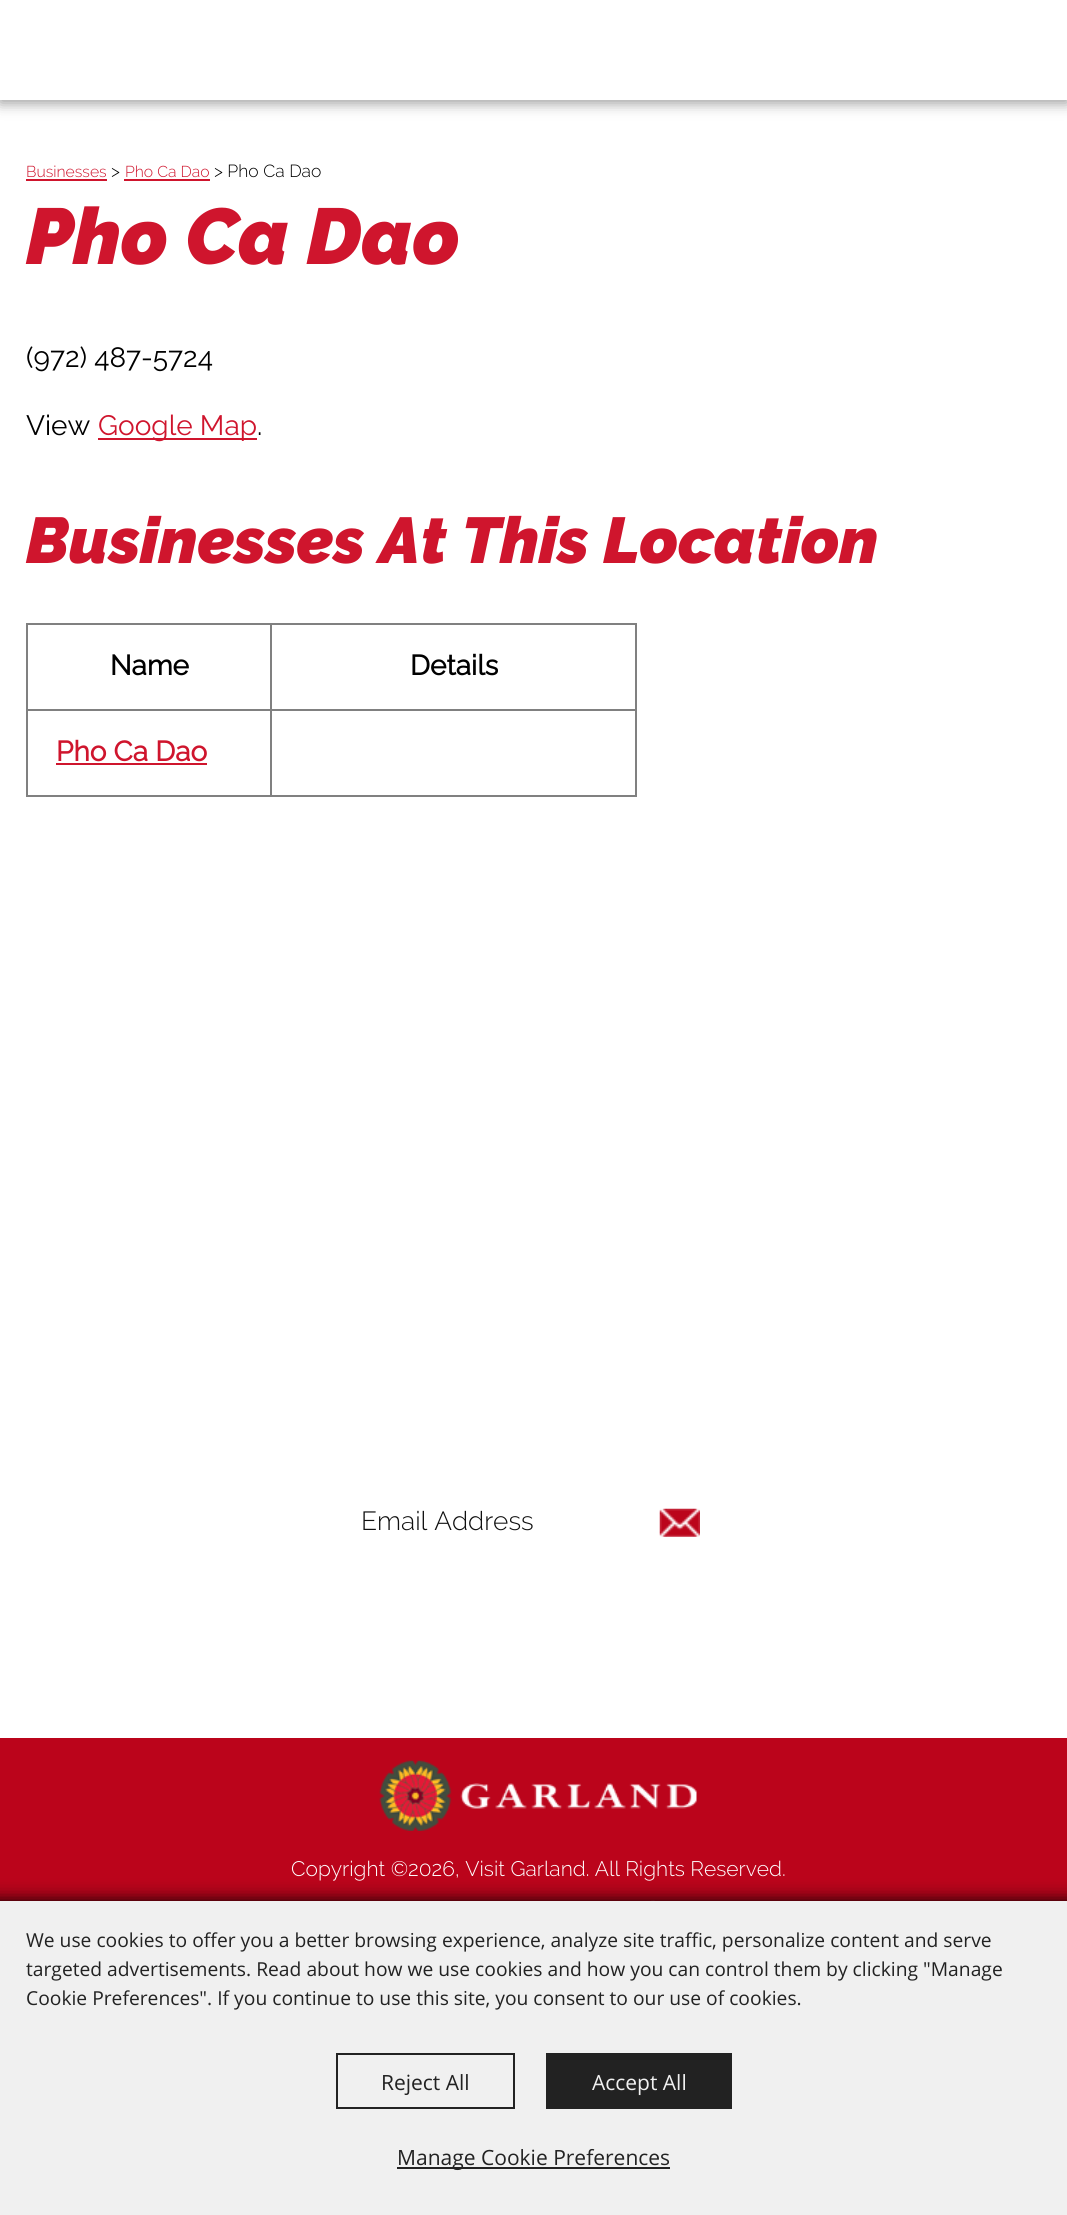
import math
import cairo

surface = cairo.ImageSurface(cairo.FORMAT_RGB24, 1067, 2215)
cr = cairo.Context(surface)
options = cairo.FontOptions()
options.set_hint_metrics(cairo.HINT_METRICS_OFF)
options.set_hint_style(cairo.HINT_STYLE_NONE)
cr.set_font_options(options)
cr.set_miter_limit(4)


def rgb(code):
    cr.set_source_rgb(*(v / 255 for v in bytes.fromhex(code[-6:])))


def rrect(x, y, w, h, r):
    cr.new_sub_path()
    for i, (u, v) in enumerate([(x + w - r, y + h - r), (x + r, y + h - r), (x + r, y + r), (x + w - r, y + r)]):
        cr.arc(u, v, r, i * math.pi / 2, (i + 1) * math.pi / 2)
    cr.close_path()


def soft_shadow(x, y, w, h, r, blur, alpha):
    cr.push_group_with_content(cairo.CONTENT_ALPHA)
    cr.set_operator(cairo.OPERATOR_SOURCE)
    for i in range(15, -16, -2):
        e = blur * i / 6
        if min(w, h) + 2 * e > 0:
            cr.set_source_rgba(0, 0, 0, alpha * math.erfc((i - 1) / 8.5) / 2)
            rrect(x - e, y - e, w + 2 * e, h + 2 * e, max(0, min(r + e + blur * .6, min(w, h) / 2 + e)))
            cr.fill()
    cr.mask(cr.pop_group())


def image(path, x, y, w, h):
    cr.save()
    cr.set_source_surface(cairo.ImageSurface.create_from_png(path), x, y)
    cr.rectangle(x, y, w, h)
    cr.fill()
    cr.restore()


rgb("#ffffff")
cr.paint()
rgb("#323232")
soft_shadow(0, 4, 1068, 99, 0, 7, 0.5)
for x, y, w, h, color in [
    (0, 0, 1067, 100, "#ffffff"),
    (26, 179, 81, 2, "#cf152d"),
    (124, 179, 86, 2, "#cf152d"),
    (98, 438, 159, 2, "#cf152d"),
    (26, 623, 611, 2, "#808080"),
    (635, 623, 2, 173, "#808080"),
    (26, 795, 611, 2, "#808080"),
    (26, 623, 2, 173, "#808080"),
    (270, 709, 367, 2, "#808080"),
    (270, 709, 2, 87, "#808080"),
    (26, 709, 245, 2, "#808080"),
    (270, 623, 2, 88, "#808080"),
    (56, 763, 151, 2, "#cf152d"),
]:
    rgb(color)
    cr.rectangle(x, y, w, h)
    cr.fill()
image("img/1.png", 659, 1508, 41, 29)
rgb("#bb041b")
cr.rectangle(0, 1738, 1067, 163)
cr.fill()
image("img/2.png", 379, 1760, 318, 71)
image("img/3.png", 651, 1900, 4, 1)
rgb("#000000")
soft_shadow(-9, 1901, 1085, 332, 0, 9, 1)
rgb("#f0f0f0")
cr.rectangle(0, 1901, 1067, 314)
cr.fill()
cr.rectangle(337, 2054, 177, 54)
rgb("#222222")
cr.stroke()
cr.rectangle(546, 2053, 186, 56)
cr.fill()
cr.rectangle(397, 2167, 273, 2)
cr.fill()
cr.select_font_face("Raleway Light")
cr.set_font_size(15.75)
rgb("#cf152d")
cr.move_to(26, 177)
cr.show_text("Businesses")
cr.set_font_size(17.5)
rgb("#000000")
cr.move_to(111, 177)
cr.show_text(">")
cr.set_font_size(15.75)
rgb("#cf152d")
cr.move_to(125, 177)
cr.show_text("Pho Ca Dao")
cr.set_font_size(17.5)
rgb("#000000")
cr.move_to(214, 177)
cr.show_text("> Pho Ca Dao")
cr.select_font_face("Raleway Black", cairo.FONT_SLANT_ITALIC)
cr.set_font_size(79)
rgb("#cf152d")
cr.move_to(26, 264)
cr.show_text("Pho Ca Dao")
cr.select_font_face("Raleway")
cr.set_font_size(28)
rgb("#000000")
cr.move_to(26, 367)
cr.show_text("(972) 487-5724")
cr.move_to(26, 435)
cr.show_text("View")
rgb("#cf152d")
cr.move_to(98, 435)
cr.show_text("Google Map")
rgb("#000000")
cr.move_to(257, 435)
cr.show_text(".")
cr.select_font_face("Raleway Black", cairo.FONT_SLANT_ITALIC)
cr.set_font_size(64.6)
rgb("#cf152d")
cr.move_to(26, 563)
cr.show_text("Businesses At This Location")
cr.select_font_face("Raleway", cairo.FONT_SLANT_NORMAL, cairo.FONT_WEIGHT_BOLD)
cr.set_font_size(28)
rgb("#000000")
cr.move_to(110, 675)
cr.show_text("Name")
cr.move_to(410, 675)
cr.show_text("Details")
rgb("#cf152d")
cr.move_to(56, 761)
cr.show_text("Pho Ca Dao")
cr.select_font_face("Raleway Light")
cr.set_font_size(26.25)
rgb("#101010")
cr.move_to(361, 1530)
cr.show_text("Email Address")
cr.set_font_size(21)
rgb("#ffffff")
cr.move_to(291, 1876)
cr.show_text("Copyright ©2026, Visit Garland. All Rights Reserved.")
cr.select_font_face("Open Sans")
cr.set_font_size(19.25)
rgb("#222222")
for x, y, s in [
    (26, 1947, "We use cookies to offer you a better browsing experience, analyze site traffic, personalize content and serve"),
    (26, 1976, "targeted advertisements. Read about how we use cookies and how you can control them by clicking \"Manage"),
    (26, 2005, "Cookie Preferences\". If you continue to use this site, you consent to our use of cookies."),
]:
    cr.move_to(x, y)
    cr.show_text(s)
cr.set_font_size(21)
cr.move_to(381, 2090)
cr.show_text("Reject All")
rgb("#f0f0f0")
cr.move_to(592, 2090)
cr.show_text("Accept All")
rgb("#222222")
cr.move_to(397, 2165)
cr.show_text("Manage Cookie Preferences")
surface.write_to_png("page.png")
